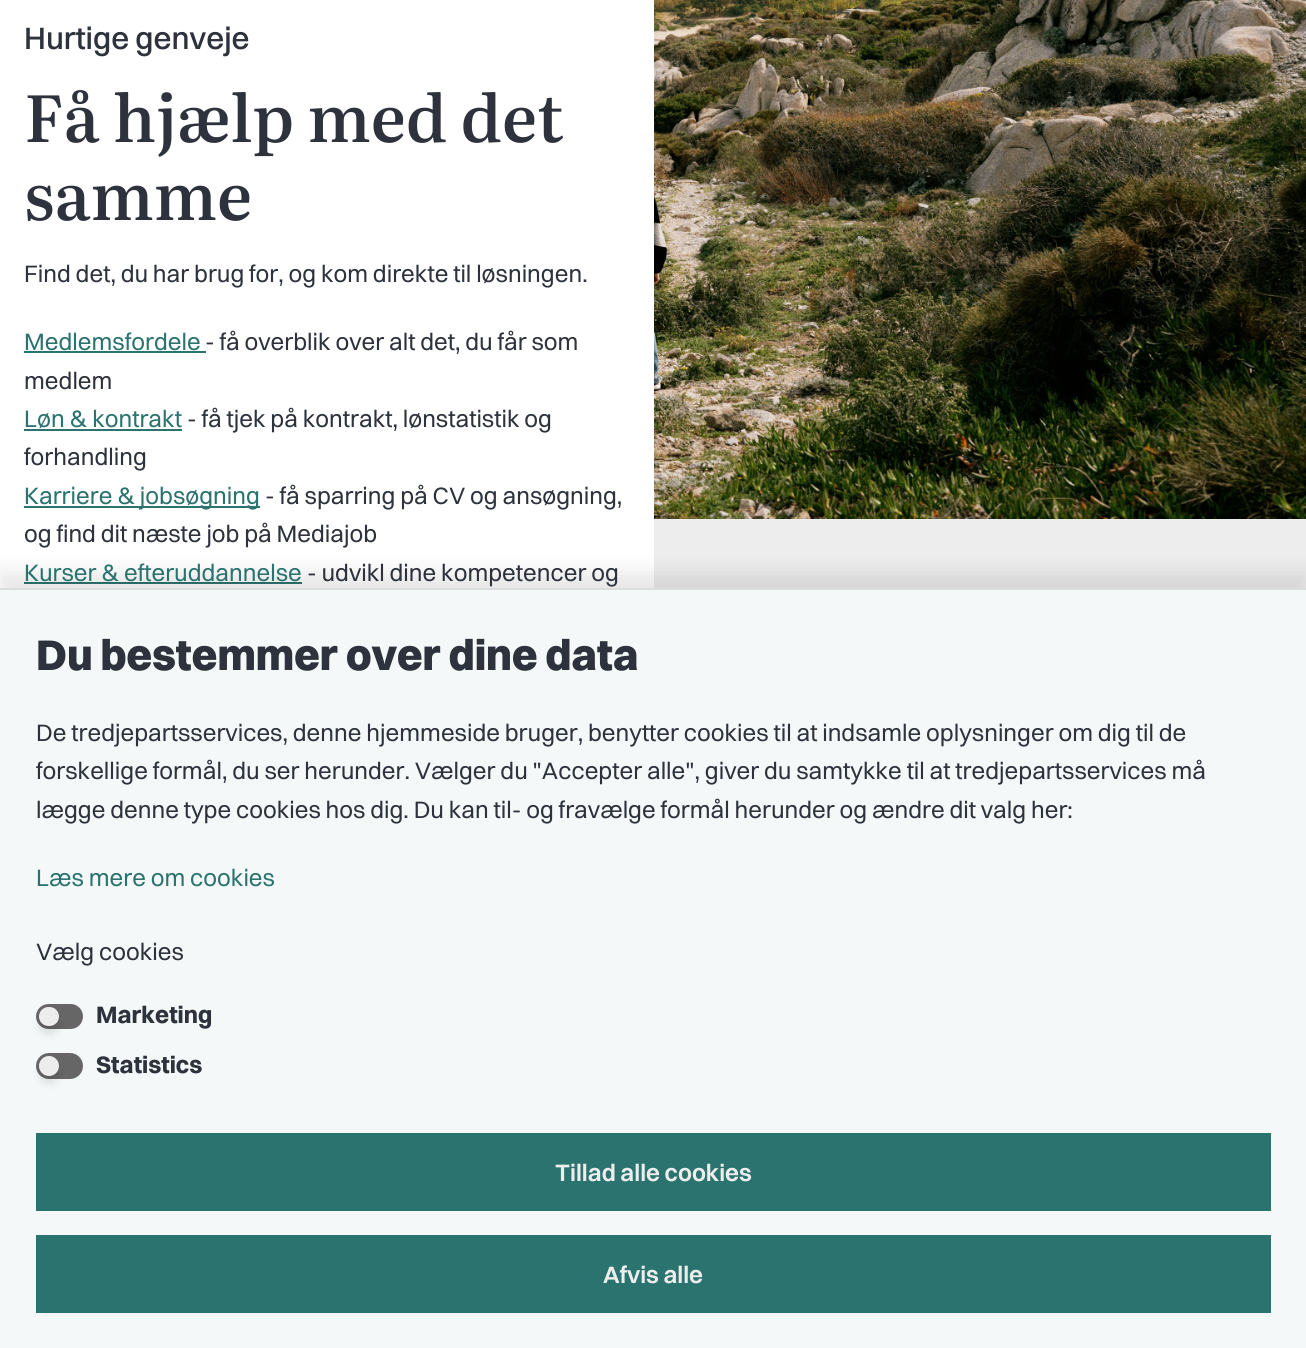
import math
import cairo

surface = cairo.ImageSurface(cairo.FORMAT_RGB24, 1306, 1348)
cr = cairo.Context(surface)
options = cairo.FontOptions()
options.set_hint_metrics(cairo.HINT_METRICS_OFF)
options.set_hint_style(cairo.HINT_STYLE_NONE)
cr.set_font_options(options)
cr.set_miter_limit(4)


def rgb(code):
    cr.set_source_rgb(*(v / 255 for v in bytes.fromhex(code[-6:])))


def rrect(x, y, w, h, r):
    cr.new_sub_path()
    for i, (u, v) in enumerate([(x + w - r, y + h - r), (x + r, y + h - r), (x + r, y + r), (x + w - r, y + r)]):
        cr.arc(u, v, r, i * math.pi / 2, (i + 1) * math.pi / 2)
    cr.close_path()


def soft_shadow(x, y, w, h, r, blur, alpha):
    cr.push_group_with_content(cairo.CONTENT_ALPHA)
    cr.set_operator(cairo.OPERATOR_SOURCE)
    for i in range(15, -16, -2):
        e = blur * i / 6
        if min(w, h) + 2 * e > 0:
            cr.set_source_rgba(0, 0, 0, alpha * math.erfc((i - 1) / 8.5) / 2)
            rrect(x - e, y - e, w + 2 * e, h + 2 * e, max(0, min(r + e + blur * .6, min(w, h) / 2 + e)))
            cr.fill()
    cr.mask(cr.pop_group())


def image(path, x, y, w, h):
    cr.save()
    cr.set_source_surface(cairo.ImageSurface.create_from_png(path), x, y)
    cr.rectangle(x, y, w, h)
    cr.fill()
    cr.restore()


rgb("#ededed")
cr.paint()
image("img/1.png", 654, 0, 652, 519)
for x, y, w, h, color in [
    (0, 0, 654, 588, "#ffffff"),
    (24, 351, 182, 2, "#2b736f"),
    (24, 429, 158, 2, "#2b736f"),
    (24, 506, 236, 2, "#2b736f"),
    (24, 582, 278, 2, "#2b736f"),
]:
    rgb(color)
    cr.rectangle(x, y, w, h)
    cr.fill()
rgb("#000000")
soft_shadow(0, 573, 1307, 761, 0, 11, 0.1)
rgb("#f4f8f8")
cr.rectangle(0, 590, 1306, 758)
cr.fill()
rgb("#dddddd")
cr.rectangle(0, 588, 1306, 2)
cr.fill()
rgb("#666666")
rrect(36, 1004, 47, 25, 12.5)
cr.fill()
rgb("#000000")
soft_shadow(39, 1014, 20, 20, 10, 4, 0.1)
rgb("#ededed")
rrect(39, 1007, 20, 19, 9.5)
cr.fill()
rgb("#666666")
rrect(36, 1053, 47, 26, 13)
cr.fill()
rgb("#000000")
soft_shadow(39, 1064, 20, 19, 9.5, 4, 0.1)
rgb("#ededed")
cr.arc(49, 1066, 10, 0, 2 * math.pi)
cr.fill()
rgb("#2b736f")
cr.rectangle(36, 1133, 1235, 78)
cr.fill()
cr.rectangle(36, 1235, 1235, 78)
cr.fill()
cr.select_font_face("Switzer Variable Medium")
cr.set_font_size(31.25)
rgb("#2d323c")
cr.move_to(24, 49)
cr.show_text("Hurtige genveje")
cr.select_font_face("Literata Medium")
cr.set_font_size(65.25)
cr.move_to(24, 142)
cr.show_text("Få hjælp med det")
cr.move_to(24, 220)
cr.show_text("samme")
cr.select_font_face("Switzer Variable")
cr.set_font_size(24)
cr.move_to(24, 282)
cr.show_text("Find det, du har brug for, og kom direkte til løsningen.")
rgb("#2b736f")
cr.move_to(24, 350)
cr.show_text("Medlemsfordele")
rgb("#2d323c")
cr.move_to(205, 350)
cr.show_text("- få overblik over alt det, du får som")
cr.move_to(24, 389)
cr.show_text("medlem")
rgb("#2b736f")
cr.move_to(24, 427)
cr.show_text("Løn & kontrakt")
rgb("#2d323c")
cr.move_to(187, 427)
cr.show_text("- få tjek på kontrakt, lønstatistik og")
cr.move_to(24, 465)
cr.show_text("forhandling")
rgb("#2b736f")
cr.move_to(24, 504)
cr.show_text("Karriere & jobsøgning")
rgb("#2d323c")
cr.move_to(265, 504)
cr.show_text("- få sparring på CV og ansøgning,")
cr.move_to(24, 542)
cr.show_text("og find dit næste job på Mediajob")
rgb("#2b736f")
cr.move_to(24, 581)
cr.show_text("Kurser & efteruddannelse")
rgb("#2d323c")
cr.move_to(307, 581)
cr.show_text("- udvikl dine kompetencer og")
cr.select_font_face("Switzer Variable ExtraBold")
cr.set_font_size(43.25)
cr.move_to(36, 670)
cr.show_text("Du bestemmer over dine data")
cr.select_font_face("Switzer Variable")
cr.set_font_size(24)
for x, y, s in [
    (36, 741, "De tredjepartsservices, denne hjemmeside bruger, benytter cookies til at indsamle oplysninger om dig til de"),
    (36, 779, "forskellige formål, du ser herunder. Vælger du \"Accepter alle\", giver du samtykke til at tredjepartsservices må"),
    (36, 818, "lægge denne type cookies hos dig. Du kan til- og fravælge formål herunder og ændre dit valg her:"),
]:
    cr.move_to(x, y)
    cr.show_text(s)
rgb("#2b736f")
cr.move_to(36, 886)
cr.show_text("Læs mere om cookies")
rgb("#2d323c")
cr.move_to(36, 960)
cr.show_text("Vælg cookies")
cr.select_font_face("Switzer Variable", cairo.FONT_SLANT_NORMAL, cairo.FONT_WEIGHT_BOLD)
cr.move_to(96, 1023)
cr.show_text("Marketing")
cr.move_to(96, 1073)
cr.show_text("Statistics")
cr.select_font_face("Switzer Variable SemiBold")
rgb("#ededed")
cr.move_to(555, 1181)
cr.show_text("Tillad alle cookies")
cr.move_to(603, 1283)
cr.show_text("Afvis alle")
surface.write_to_png("page.png")
